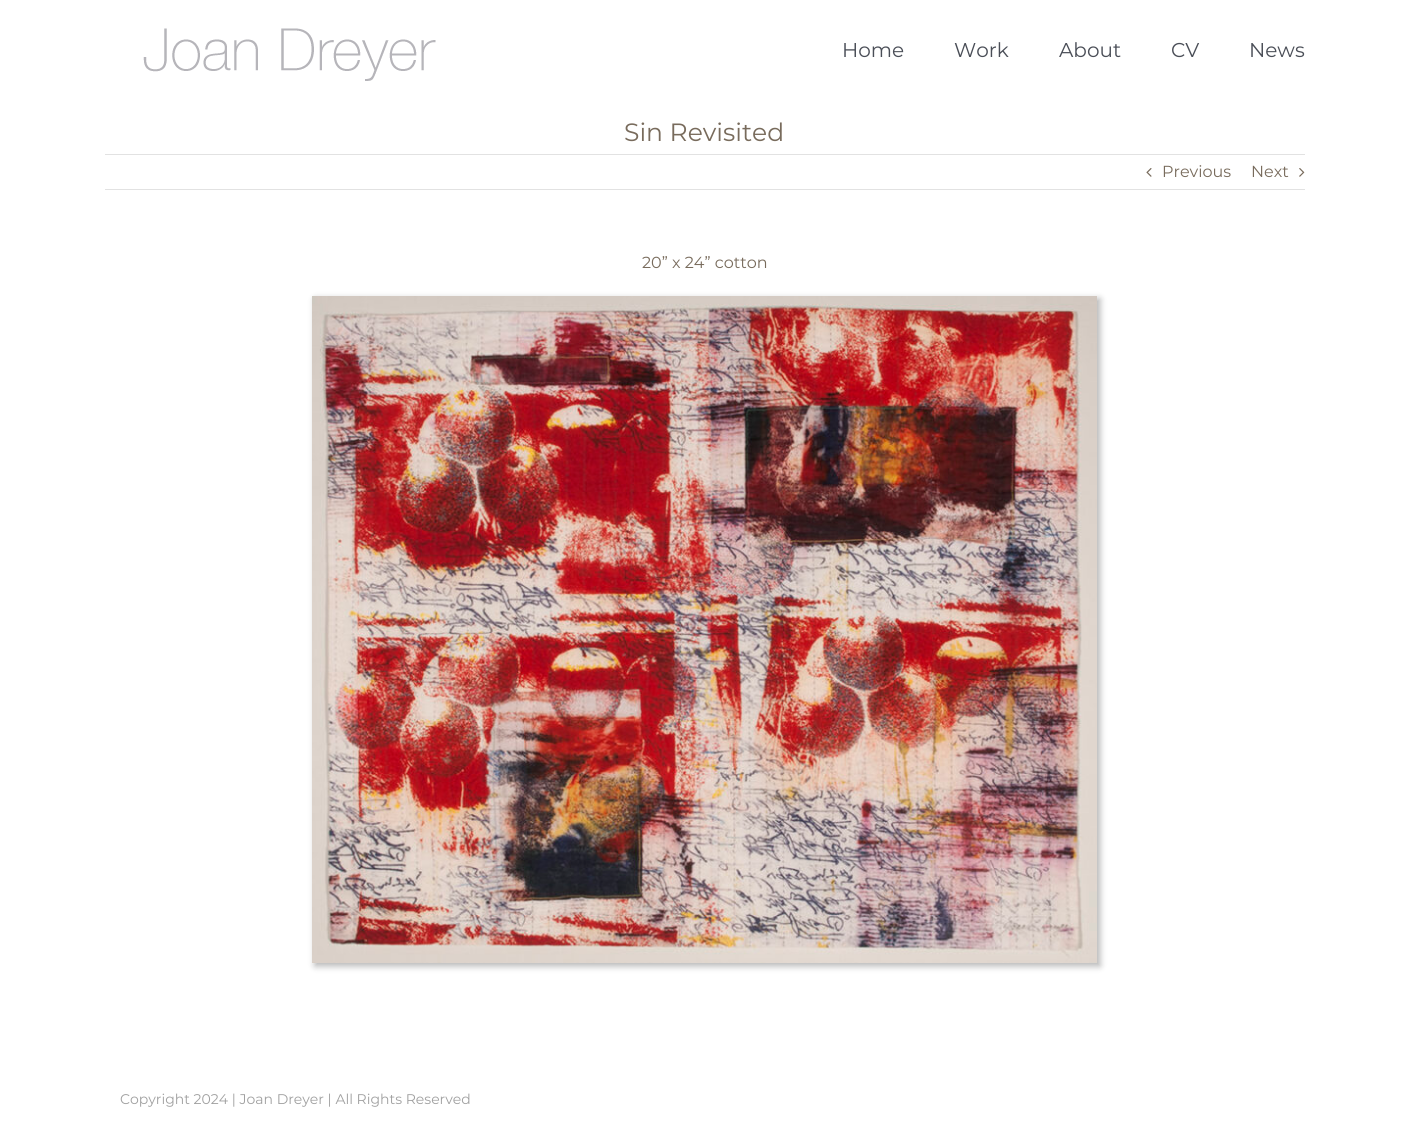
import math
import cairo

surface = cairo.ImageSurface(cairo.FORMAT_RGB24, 1409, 1139)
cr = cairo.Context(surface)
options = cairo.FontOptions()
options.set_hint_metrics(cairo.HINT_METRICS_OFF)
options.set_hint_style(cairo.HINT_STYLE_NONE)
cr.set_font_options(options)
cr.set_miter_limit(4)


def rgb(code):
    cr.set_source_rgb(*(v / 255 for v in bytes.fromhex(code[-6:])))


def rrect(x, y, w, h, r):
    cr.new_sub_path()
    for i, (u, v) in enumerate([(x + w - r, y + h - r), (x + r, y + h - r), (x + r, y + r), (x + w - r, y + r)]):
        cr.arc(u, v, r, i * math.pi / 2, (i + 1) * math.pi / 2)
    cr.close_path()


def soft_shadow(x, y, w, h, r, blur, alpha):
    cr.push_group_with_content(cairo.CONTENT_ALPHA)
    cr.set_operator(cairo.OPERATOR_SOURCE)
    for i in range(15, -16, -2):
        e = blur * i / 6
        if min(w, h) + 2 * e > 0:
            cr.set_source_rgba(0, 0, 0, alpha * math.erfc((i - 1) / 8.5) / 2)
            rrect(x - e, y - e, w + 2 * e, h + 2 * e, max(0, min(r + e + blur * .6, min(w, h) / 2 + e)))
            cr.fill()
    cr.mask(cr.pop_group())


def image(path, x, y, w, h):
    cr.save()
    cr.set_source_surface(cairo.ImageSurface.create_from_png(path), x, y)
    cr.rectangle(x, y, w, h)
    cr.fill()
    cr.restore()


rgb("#ffffff")
cr.paint()
image("img/1.png", 143, 28, 293, 53)
rgb("#e2e2e2")
cr.rectangle(105, 154, 1200, 1)
cr.fill()
cr.rectangle(105, 189, 1200, 1)
cr.fill()
image("img/2.png", 1146, 168, 6, 9)
image("img/3.png", 1299, 168, 6, 9)
rgb("#000000")
soft_shadow(315, 299, 785, 667, 0, 3.5, 0.3)
image("img/4.png", 312, 296, 785, 667)
cr.select_font_face("Montserrat")
cr.set_font_size(20)
rgb("#4a4e57")
for x, y, s in [
    (842, 57, "Home"),
    (954, 57, "Work"),
    (1059, 57, "About"),
    (1171, 57, "CV"),
    (1249, 57, "News"),
]:
    cr.move_to(x, y)
    cr.show_text(s)
cr.set_font_size(25)
rgb("#786b5c")
cr.move_to(624, 141)
cr.show_text("Sin Revisited")
cr.set_font_size(16)
for x, y, s in [
    (1162, 177, "Previous"),
    (1251, 177, "Next"),
    (642, 268, "20” x 24” cotton"),
]:
    cr.move_to(x, y)
    cr.show_text(s)
cr.set_font_size(14)
rgb("#a0a0a0")
cr.move_to(120, 1104)
cr.show_text("Copyright 2024 | Joan Dreyer | All Rights Reserved")
surface.write_to_png("page.png")
